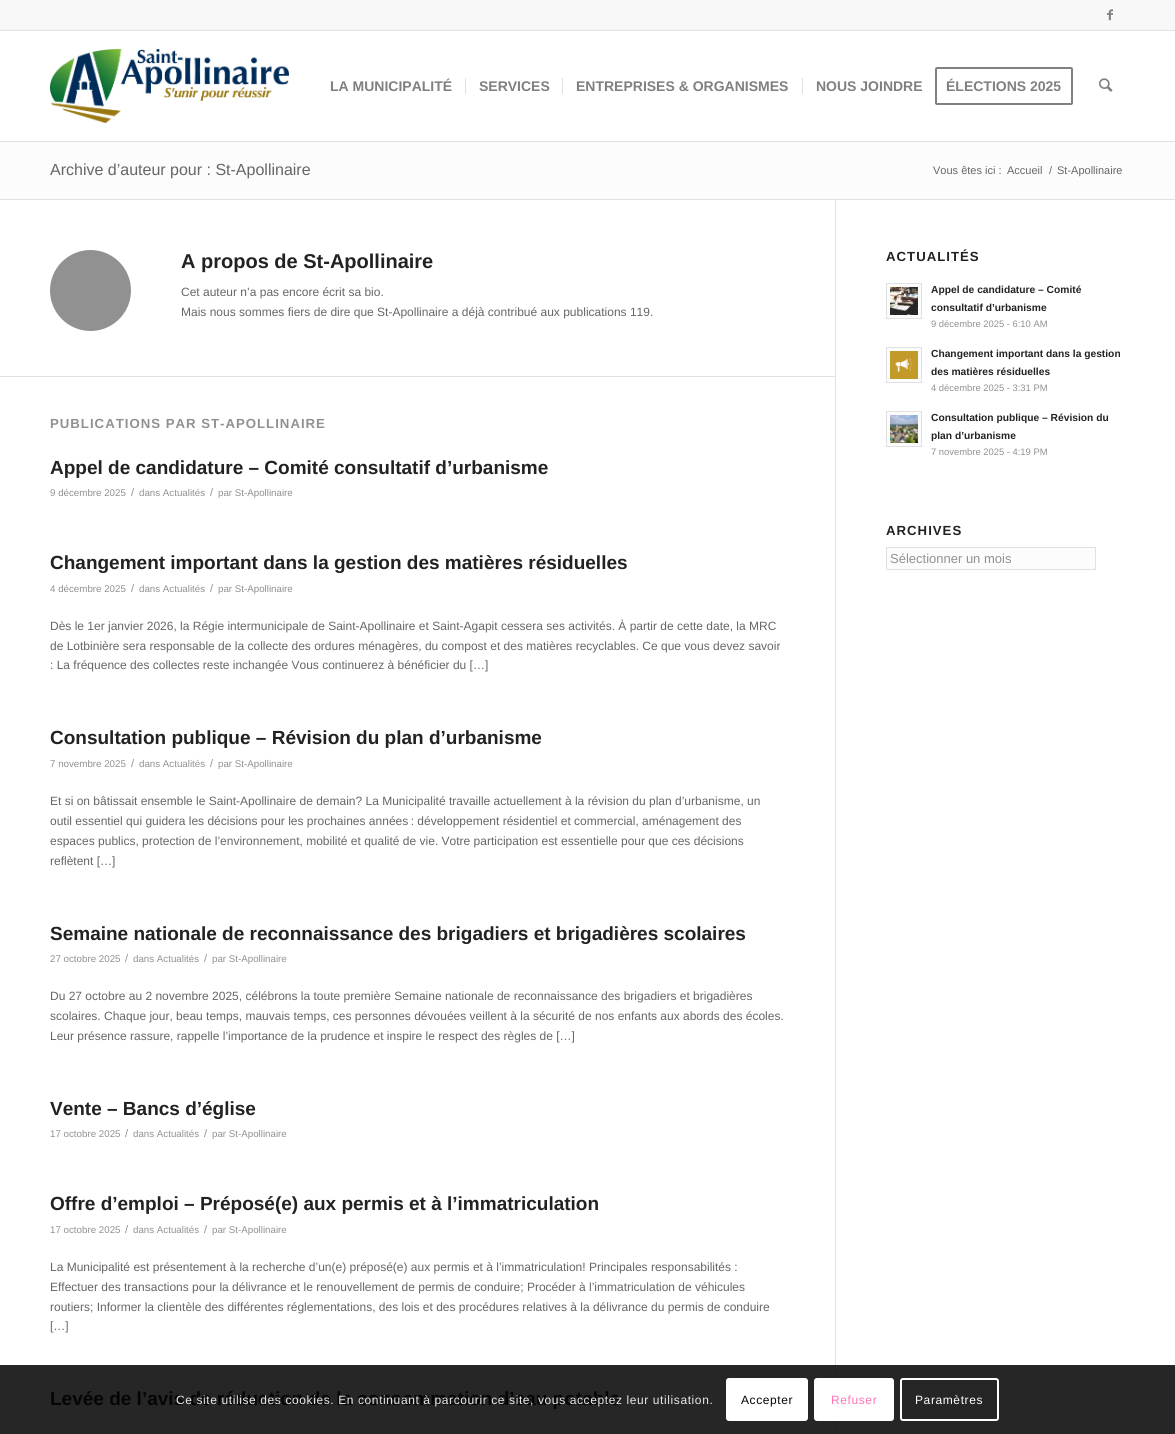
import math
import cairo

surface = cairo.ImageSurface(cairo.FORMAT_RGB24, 1175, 1434)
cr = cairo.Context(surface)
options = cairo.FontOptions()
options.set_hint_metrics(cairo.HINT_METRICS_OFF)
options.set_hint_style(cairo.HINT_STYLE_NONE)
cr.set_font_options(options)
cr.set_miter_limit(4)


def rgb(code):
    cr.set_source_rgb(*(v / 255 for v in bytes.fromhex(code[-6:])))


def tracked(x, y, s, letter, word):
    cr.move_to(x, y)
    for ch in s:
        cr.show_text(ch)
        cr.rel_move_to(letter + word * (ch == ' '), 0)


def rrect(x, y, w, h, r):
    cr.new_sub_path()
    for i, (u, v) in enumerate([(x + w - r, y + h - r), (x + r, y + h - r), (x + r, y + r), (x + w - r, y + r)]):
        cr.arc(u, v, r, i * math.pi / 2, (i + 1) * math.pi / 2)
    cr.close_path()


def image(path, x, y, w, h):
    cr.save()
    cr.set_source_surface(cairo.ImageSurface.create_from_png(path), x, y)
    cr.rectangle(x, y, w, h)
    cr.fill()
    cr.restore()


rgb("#ffffff")
cr.paint()
for x, y, w, h, color in [
    (0, 1365, 1175, 69, "#262626"),
    (0, 0, 1175, 30, "#f8f8f8"),
    (0, 30, 1175, 1, "#e1e1e1"),
]:
    rgb(color)
    cr.rectangle(x, y, w, h)
    cr.fill()
image("img/1.png", 1107, 9, 6, 12)
cr.rectangle(0, 141, 1175, 1)
cr.fill()
image("img/2.png", 50, 49, 239, 74)
for x, y, w, h, color in [
    (465, 78, 1, 16, "#e1e1e1"),
    (562, 78, 1, 16, "#e1e1e1"),
    (802, 78, 1, 16, "#e1e1e1"),
]:
    rgb(color)
    cr.rectangle(x, y, w, h)
    cr.fill()
rrect(936, 68, 136, 36, 1)
rgb("#808080")
cr.stroke()
image("img/3.png", 1099, 78, 14, 14)
for x, y, w, h, color in [
    (0, 142, 1175, 57, "#fcfcfc"),
    (0, 199, 1175, 1, "#e1e1e1"),
    (835, 200, 1, 1165, "#e1e1e1"),
    (835, 1365, 1, 69, "#222222"),
]:
    rgb(color)
    cr.rectangle(x, y, w, h)
    cr.fill()
rgb("#919191")
cr.arc(90.5, 290.5, 40.5, 0, 2 * math.pi)
cr.fill()
rgb("#e1e1e1")
cr.rectangle(0, 376, 835, 1)
cr.fill()
rgb("#fcfcfc")
cr.rectangle(886.5, 283.5, 35, 35)
cr.fill_preserve()
rgb("#e1e1e1")
cr.set_line_width(1)
cr.stroke()
image("img/4.png", 890, 287, 28, 28)
rgb("#fcfcfc")
cr.rectangle(886.5, 347.5, 35, 35)
cr.fill_preserve()
rgb("#e1e1e1")
cr.stroke()
image("img/5.png", 890, 351, 28, 28)
rgb("#fcfcfc")
cr.rectangle(886.5, 411.5, 35, 35)
cr.fill_preserve()
rgb("#e1e1e1")
cr.stroke()
image("img/6.png", 890, 415, 28, 28)
rgb("#fcfcfc")
cr.rectangle(886.5, 547.5, 209, 22)
cr.fill_preserve()
rgb("#e1e1e1")
cr.stroke()
rgb("#ffffff")
rrect(726, 1378, 82, 43, 3)
cr.fill()
rrect(815, 1379, 78, 41, 2)
cr.fill_preserve()
cr.set_line_width(2)
cr.stroke()
rrect(901, 1379, 97, 41, 2)
cr.stroke()
cr.select_font_face("Liberation Sans", cairo.FONT_SLANT_NORMAL, cairo.FONT_WEIGHT_BOLD)
cr.set_font_size(14)
rgb("#808080")
for x, y, s in [
    (330, 91, "LA MUNICIPALITÉ"),
    (479, 91, "SERVICES"),
    (576, 91, "ENTREPRISES & ORGANISMES"),
    (816, 91, "NOUS JOINDRE"),
    (946, 91, "ÉLECTIONS 2025"),
]:
    cr.move_to(x, y)
    cr.show_text(s)
cr.select_font_face("Arimo")
cr.set_font_size(16)
rgb("#666666")
cr.move_to(50, 175)
cr.show_text("Archive d’auteur pour : St-Apollinaire")
cr.select_font_face("Liberation Sans")
cr.set_font_size(11)
for x, y, s in [
    (933, 174, "Vous êtes ici :"),
    (1007, 174, "Accueil"),
    (1049, 174, "/"),
    (1057, 174, "St-Apollinaire"),
]:
    cr.move_to(x, y)
    cr.show_text(s)
cr.select_font_face("Arimo", cairo.FONT_SLANT_NORMAL, cairo.FONT_WEIGHT_BOLD)
cr.set_font_size(20)
rgb("#222222")
cr.move_to(181, 268)
cr.show_text("A propos de St-Apollinaire")
cr.select_font_face("Liberation Sans")
cr.set_font_size(12)
rgb("#666666")
cr.move_to(181, 296)
cr.show_text("Cet auteur n’a pas encore écrit sa bio.")
cr.move_to(181, 316)
cr.show_text("Mais nous sommes fiers de dire que St-Apollinaire a déjà contribué aux publications 119.")
cr.select_font_face("Arimo", cairo.FONT_SLANT_NORMAL, cairo.FONT_WEIGHT_BOLD)
cr.set_font_size(13.2)
rgb("#919191")
tracked(50, 428, "PUBLICATIONS PAR ST-APOLLINAIRE", 1, 0)
cr.set_font_size(19)
rgb("#222222")
cr.move_to(50, 474)
cr.show_text("Appel de candidature – Comité consultatif d’urbanisme")
cr.select_font_face("Liberation Sans")
cr.set_font_size(9.75)
rgb("#919191")
cr.move_to(50, 496)
cr.show_text("9 décembre 2025")
cr.set_font_size(11)
cr.move_to(131, 496)
cr.show_text("/")
cr.set_font_size(9.75)
cr.move_to(139, 496)
cr.show_text("dans Actualités")
cr.set_font_size(11)
cr.move_to(210, 496)
cr.show_text("/")
cr.set_font_size(9.75)
cr.move_to(218, 496)
cr.show_text("par St-Apollinaire")
cr.select_font_face("Arimo", cairo.FONT_SLANT_NORMAL, cairo.FONT_WEIGHT_BOLD)
cr.set_font_size(19)
rgb("#222222")
cr.move_to(50, 569)
cr.show_text("Changement important dans la gestion des matières résiduelles")
cr.select_font_face("Liberation Sans")
cr.set_font_size(9.75)
rgb("#919191")
cr.move_to(50, 592)
cr.show_text("4 décembre 2025")
cr.set_font_size(11)
cr.move_to(131, 592)
cr.show_text("/")
cr.set_font_size(9.75)
cr.move_to(139, 592)
cr.show_text("dans Actualités")
cr.set_font_size(11)
cr.move_to(210, 592)
cr.show_text("/")
cr.set_font_size(9.75)
cr.move_to(218, 592)
cr.show_text("par St-Apollinaire")
cr.set_font_size(12)
rgb("#666666")
for x, y, s in [
    (50, 630, "Dès le 1er janvier 2026, la Régie intermunicipale de Saint-Apollinaire et Saint-Agapit cessera ses activités. À partir de cette date, la MRC"),
    (50, 650, "de Lotbinière sera responsable de la collecte des ordures ménagères, du compost et des matières recyclables. Ce que vous devez savoir"),
    (50, 669, ": La fréquence des collectes reste inchangée Vous continuerez à bénéficier du […]"),
]:
    cr.move_to(x, y)
    cr.show_text(s)
cr.select_font_face("Arimo", cairo.FONT_SLANT_NORMAL, cairo.FONT_WEIGHT_BOLD)
cr.set_font_size(19)
rgb("#222222")
cr.move_to(50, 744)
cr.show_text("Consultation publique – Révision du plan d’urbanisme")
cr.select_font_face("Liberation Sans")
cr.set_font_size(9.75)
rgb("#919191")
cr.move_to(50, 767)
cr.show_text("7 novembre 2025")
cr.set_font_size(11)
cr.move_to(131, 767)
cr.show_text("/")
cr.set_font_size(9.75)
cr.move_to(139, 767)
cr.show_text("dans Actualités")
cr.set_font_size(11)
cr.move_to(210, 767)
cr.show_text("/")
cr.set_font_size(9.75)
cr.move_to(218, 767)
cr.show_text("par St-Apollinaire")
cr.set_font_size(12)
rgb("#666666")
for x, y, s in [
    (50, 805, "Et si on bâtissait ensemble le Saint-Apollinaire de demain? La Municipalité travaille actuellement à la révision du plan d’urbanisme, un"),
    (50, 825, "outil essentiel qui guidera les décisions pour les prochaines années : développement résidentiel et commercial, aménagement des"),
    (50, 845, "espaces publics, protection de l’environnement, mobilité et qualité de vie. Votre participation est essentielle pour que ces décisions"),
    (50, 865, "reflètent […]"),
]:
    cr.move_to(x, y)
    cr.show_text(s)
cr.select_font_face("Arimo", cairo.FONT_SLANT_NORMAL, cairo.FONT_WEIGHT_BOLD)
cr.set_font_size(19)
rgb("#222222")
cr.move_to(50, 940)
cr.show_text("Semaine nationale de reconnaissance des brigadiers et brigadières scolaires")
cr.select_font_face("Liberation Sans")
cr.set_font_size(9.75)
rgb("#919191")
cr.move_to(50, 962)
cr.show_text("27 octobre 2025")
cr.set_font_size(11)
cr.move_to(125, 962)
cr.show_text("/")
cr.set_font_size(9.75)
cr.move_to(133, 962)
cr.show_text("dans Actualités")
cr.set_font_size(11)
cr.move_to(204, 962)
cr.show_text("/")
cr.set_font_size(9.75)
cr.move_to(212, 962)
cr.show_text("par St-Apollinaire")
cr.set_font_size(12)
rgb("#666666")
for x, y, s in [
    (50, 1000, "Du 27 octobre au 2 novembre 2025, célébrons la toute première Semaine nationale de reconnaissance des brigadiers et brigadières"),
    (50, 1020, "scolaires. Chaque jour, beau temps, mauvais temps, ces personnes dévouées veillent à la sécurité de nos enfants aux abords des écoles."),
    (50, 1040, "Leur présence rassure, rappelle l’importance de la prudence et inspire le respect des règles de […]"),
]:
    cr.move_to(x, y)
    cr.show_text(s)
cr.select_font_face("Arimo", cairo.FONT_SLANT_NORMAL, cairo.FONT_WEIGHT_BOLD)
cr.set_font_size(19)
rgb("#222222")
cr.move_to(50, 1115)
cr.show_text("Vente – Bancs d’église")
cr.select_font_face("Liberation Sans")
cr.set_font_size(9.75)
rgb("#919191")
cr.move_to(50, 1137)
cr.show_text("17 octobre 2025")
cr.set_font_size(11)
cr.move_to(125, 1137)
cr.show_text("/")
cr.set_font_size(9.75)
cr.move_to(133, 1137)
cr.show_text("dans Actualités")
cr.set_font_size(11)
cr.move_to(204, 1137)
cr.show_text("/")
cr.set_font_size(9.75)
cr.move_to(212, 1137)
cr.show_text("par St-Apollinaire")
cr.select_font_face("Arimo", cairo.FONT_SLANT_NORMAL, cairo.FONT_WEIGHT_BOLD)
cr.set_font_size(19)
rgb("#222222")
cr.move_to(50, 1210)
cr.show_text("Offre d’emploi – Préposé(e) aux permis et à l’immatriculation")
cr.select_font_face("Liberation Sans")
cr.set_font_size(9.75)
rgb("#919191")
cr.move_to(50, 1233)
cr.show_text("17 octobre 2025")
cr.set_font_size(11)
cr.move_to(125, 1233)
cr.show_text("/")
cr.set_font_size(9.75)
cr.move_to(133, 1233)
cr.show_text("dans Actualités")
cr.set_font_size(11)
cr.move_to(204, 1233)
cr.show_text("/")
cr.set_font_size(9.75)
cr.move_to(212, 1233)
cr.show_text("par St-Apollinaire")
cr.set_font_size(12)
rgb("#666666")
for x, y, s in [
    (50, 1271, "La Municipalité est présentement à la recherche d’un(e) préposé(e) aux permis et à l’immatriculation! Principales responsabilités :"),
    (50, 1291, "Effectuer des transactions pour la délivrance et le renouvellement de permis de conduire; Procéder à l’immatriculation de véhicules"),
    (50, 1311, "routiers; Informer la clientèle des différentes réglementations, des lois et des procédures relatives à la délivrance du permis de conduire"),
    (50, 1330, "[…]"),
]:
    cr.move_to(x, y)
    cr.show_text(s)
cr.select_font_face("Arimo", cairo.FONT_SLANT_NORMAL, cairo.FONT_WEIGHT_BOLD)
cr.set_font_size(19)
rgb("#050505")
cr.move_to(50, 1405)
cr.show_text("Levée de l’avis de réduction de la consommation d’eau potable")
cr.set_font_size(13.2)
rgb("#222222")
tracked(886, 261, "ACTUALITÉS", 1, 0)
cr.select_font_face("Liberation Sans", cairo.FONT_SLANT_NORMAL, cairo.FONT_WEIGHT_BOLD)
cr.set_font_size(10.25)
cr.move_to(931, 293)
cr.show_text("Appel de candidature – Comité")
cr.move_to(931, 311)
cr.show_text("consultatif d’urbanisme")
cr.select_font_face("Liberation Sans")
cr.set_font_size(9.4)
rgb("#919191")
cr.move_to(931, 327)
cr.show_text("9 décembre 2025 - 6:10 AM")
cr.select_font_face("Liberation Sans", cairo.FONT_SLANT_NORMAL, cairo.FONT_WEIGHT_BOLD)
cr.set_font_size(10.25)
rgb("#222222")
cr.move_to(931, 357)
cr.show_text("Changement important dans la gestion")
cr.move_to(931, 375)
cr.show_text("des matières résiduelles")
cr.select_font_face("Liberation Sans")
cr.set_font_size(9.4)
rgb("#919191")
cr.move_to(931, 391)
cr.show_text("4 décembre 2025 - 3:31 PM")
cr.select_font_face("Liberation Sans", cairo.FONT_SLANT_NORMAL, cairo.FONT_WEIGHT_BOLD)
cr.set_font_size(10.25)
rgb("#222222")
cr.move_to(931, 421)
cr.show_text("Consultation publique – Révision du")
cr.move_to(931, 439)
cr.show_text("plan d’urbanisme")
cr.select_font_face("Liberation Sans")
cr.set_font_size(9.4)
rgb("#919191")
cr.move_to(931, 455)
cr.show_text("7 novembre 2025 - 4:19 PM")
cr.select_font_face("Arimo", cairo.FONT_SLANT_NORMAL, cairo.FONT_WEIGHT_BOLD)
cr.set_font_size(13.2)
rgb("#222222")
tracked(886, 535, "ARCHIVES", 1, 0)
cr.select_font_face("Liberation Sans")
cr.set_font_size(13)
rgb("#919191")
cr.move_to(890, 563)
cr.show_text("Sélectionner un mois")
cr.set_font_size(12)
rgb("#e8e8e8")
tracked(176, 1404, "Ce site utilise des cookies. En continuant à parcourir ce site, vous acceptez leur utilisation.", 0.6, 0)
rgb("#050505")
tracked(741, 1404, "Accepter", 0.6, 0)
rgb("#ff75b5")
tracked(831, 1404, "Refuser", 0.6, 0)
rgb("#ffffff")
tracked(915, 1404, "Paramètres", 0.6, 0)
surface.write_to_png("page.png")
